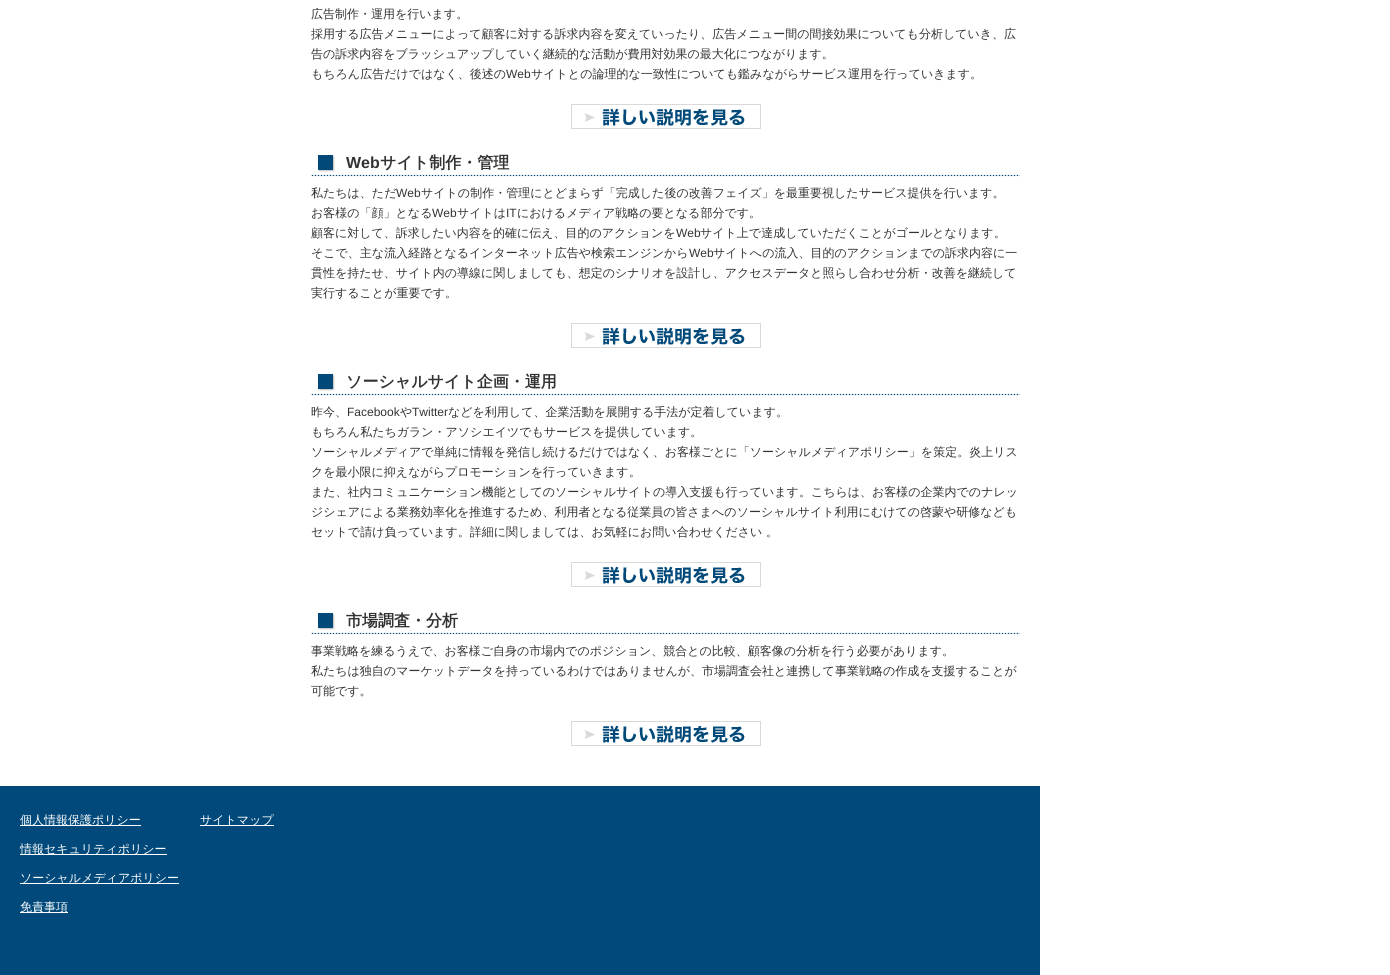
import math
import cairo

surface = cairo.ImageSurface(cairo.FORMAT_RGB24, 1390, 975)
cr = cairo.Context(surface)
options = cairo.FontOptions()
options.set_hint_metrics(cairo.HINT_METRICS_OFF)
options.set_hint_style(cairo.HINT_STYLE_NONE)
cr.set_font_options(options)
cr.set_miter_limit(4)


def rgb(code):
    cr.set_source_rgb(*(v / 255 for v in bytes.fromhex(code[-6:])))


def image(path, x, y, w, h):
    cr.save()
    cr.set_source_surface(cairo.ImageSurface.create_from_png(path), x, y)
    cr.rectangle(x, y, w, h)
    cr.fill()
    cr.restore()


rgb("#ffffff")
cr.paint()
image("img/1.png", 571, 104, 190, 25)
image("img/2.png", 311, 155, 709, 22)
image("img/1.png", 571, 323, 190, 25)
image("img/2.png", 311, 374, 709, 22)
image("img/1.png", 571, 562, 190, 25)
image("img/2.png", 311, 613, 709, 22)
image("img/1.png", 571, 721, 190, 25)
for x, y, w, h, color in [
    (0, 786, 1040, 189, "#00497a"),
    (20, 825, 121, 1, "#ffffff"),
    (20, 854, 147, 1, "#ffffff"),
    (20, 883, 159, 1, "#ffffff"),
    (20, 912, 48, 1, "#ffffff"),
    (200, 825, 74, 1, "#ffffff"),
]:
    rgb(color)
    cr.rectangle(x, y, w, h)
    cr.fill()
cr.select_font_face("WenQuanYi Zen Hei Medium")
cr.set_font_size(12)
rgb("#333333")
for x, y, s in [
    (311, 18, "広告制作・運用を行います。"),
    (311, 38, "採用する広告メニューによって顧客に対する訴求内容を変えていったり、広告メニュー間の間接効果についても分析していき、広"),
    (311, 58, "告の訴求内容をブラッシュアップしていく継続的な活動が費用対効果の最大化につながります。"),
    (311, 78, "もちろん広告だけではなく、後述の"),
]:
    cr.move_to(x, y)
    cr.show_text(s)
cr.select_font_face("Liberation Sans")
cr.move_to(506, 78)
cr.show_text("Web")
cr.select_font_face("WenQuanYi Zen Hei Medium")
cr.move_to(531, 78)
cr.show_text("サイトとの論理的な一致性についても鑑みながらサービス運用を行っていきます。")
cr.select_font_face("Liberation Sans", cairo.FONT_SLANT_NORMAL, cairo.FONT_WEIGHT_BOLD)
cr.set_font_size(16)
cr.move_to(346, 168)
cr.show_text("Web")
cr.select_font_face("WenQuanYi Zen Hei", cairo.FONT_SLANT_NORMAL, cairo.FONT_WEIGHT_BOLD)
cr.move_to(380, 168)
cr.show_text("サイト制作・管理")
cr.select_font_face("WenQuanYi Zen Hei Medium")
cr.set_font_size(12)
cr.move_to(311, 197)
cr.show_text("私たちは、ただ")
cr.select_font_face("Liberation Sans")
cr.move_to(396, 197)
cr.show_text("Web")
cr.select_font_face("WenQuanYi Zen Hei Medium")
cr.move_to(421, 197)
cr.show_text("サイトの制作・管理にとどまらず「完成した後の改善フェイズ」を最重要視したサービス提供を行います。")
cr.move_to(311, 217)
cr.show_text("お客様の「顔」となる")
cr.select_font_face("Liberation Sans")
cr.move_to(432, 217)
cr.show_text("Web")
cr.select_font_face("WenQuanYi Zen Hei Medium")
cr.move_to(457, 217)
cr.show_text("サイトは")
cr.select_font_face("Liberation Sans")
cr.move_to(506, 217)
cr.show_text("IT")
cr.select_font_face("WenQuanYi Zen Hei Medium")
cr.move_to(517, 217)
cr.show_text("におけるメディア戦略の要となる部分です。")
cr.move_to(311, 237)
cr.show_text("顧客に対して、訴求したい内容を的確に伝え、目的のアクションを")
cr.select_font_face("Liberation Sans")
cr.move_to(676, 237)
cr.show_text("Web")
cr.select_font_face("WenQuanYi Zen Hei Medium")
cr.move_to(700, 237)
cr.show_text("サイト上で達成していただくことがゴールとなります。")
cr.move_to(311, 257)
cr.show_text("そこで、主な流入経路となるインターネット広告や検索エンジンから")
cr.select_font_face("Liberation Sans")
cr.move_to(689, 257)
cr.show_text("Web")
cr.select_font_face("WenQuanYi Zen Hei Medium")
for x, y, s in [
    (713, 257, "サイトへの流入、目的のアクションまでの訴求内容に一"),
    (311, 277, "貫性を持たせ、サイト内の導線に関しましても、想定のシナリオを設計し、アクセスデータと照らし合わせ分析・改善を継続して"),
    (311, 297, "実行することが重要です。"),
]:
    cr.move_to(x, y)
    cr.show_text(s)
cr.select_font_face("WenQuanYi Zen Hei", cairo.FONT_SLANT_NORMAL, cairo.FONT_WEIGHT_BOLD)
cr.set_font_size(16)
cr.move_to(346, 387)
cr.show_text("ソーシャルサイト企画・運用")
cr.select_font_face("WenQuanYi Zen Hei Medium")
cr.set_font_size(12)
cr.move_to(311, 416)
cr.show_text("昨今、")
cr.select_font_face("Liberation Sans")
cr.move_to(347, 416)
cr.show_text("Facebook")
cr.select_font_face("WenQuanYi Zen Hei Medium")
cr.move_to(400, 416)
cr.show_text("や")
cr.select_font_face("Liberation Sans")
cr.move_to(412, 416)
cr.show_text("Twitter")
cr.select_font_face("WenQuanYi Zen Hei Medium")
for x, y, s in [
    (448, 416, "などを利用して、企業活動を展開する手法が定着しています。"),
    (311, 436, "もちろん私たちガラン・アソシエイツでもサービスを提供しています。"),
    (311, 456, "ソーシャルメディアで単純に情報を発信し続けるだけではなく、お客様ごとに「ソーシャルメディアポリシー」を策定。炎上リス"),
    (311, 476, "クを最小限に抑えながらプロモーションを行っていきます。"),
    (311, 496, "また、社内コミュニケーション機能としてのソーシャルサイトの導入支援も行っています。こちらは、お客様の企業内でのナレッ"),
    (311, 516, "ジシェアによる業務効率化を推進するため、利用者となる従業員の皆さまへのソーシャルサイト利用にむけての啓蒙や研修なども"),
    (311, 536, "セットで請け負っています。詳細に関しましては、お気軽にお問い合わせください 。"),
]:
    cr.move_to(x, y)
    cr.show_text(s)
cr.select_font_face("WenQuanYi Zen Hei", cairo.FONT_SLANT_NORMAL, cairo.FONT_WEIGHT_BOLD)
cr.set_font_size(16)
cr.move_to(346, 626)
cr.show_text("市場調査・分析")
cr.select_font_face("WenQuanYi Zen Hei Medium")
cr.set_font_size(12)
for x, y, s in [
    (311, 655, "事業戦略を練るうえで、お客様ご自身の市場内でのポジション、競合との比較、顧客像の分析を行う必要があります。"),
    (311, 675, "私たちは独自のマーケットデータを持っているわけではありませんが、市場調査会社と連携して事業戦略の作成を支援することが"),
    (311, 695, "可能です。"),
]:
    cr.move_to(x, y)
    cr.show_text(s)
rgb("#ffffff")
for x, y, s in [
    (20, 824, "個人情報保護ポリシー"),
    (20, 853, "情報セキュリティポリシー"),
    (20, 882, "ソーシャルメディアポリシー"),
    (20, 911, "免責事項"),
    (200, 824, "サイトマップ"),
]:
    cr.move_to(x, y)
    cr.show_text(s)
surface.write_to_png("page.png")
